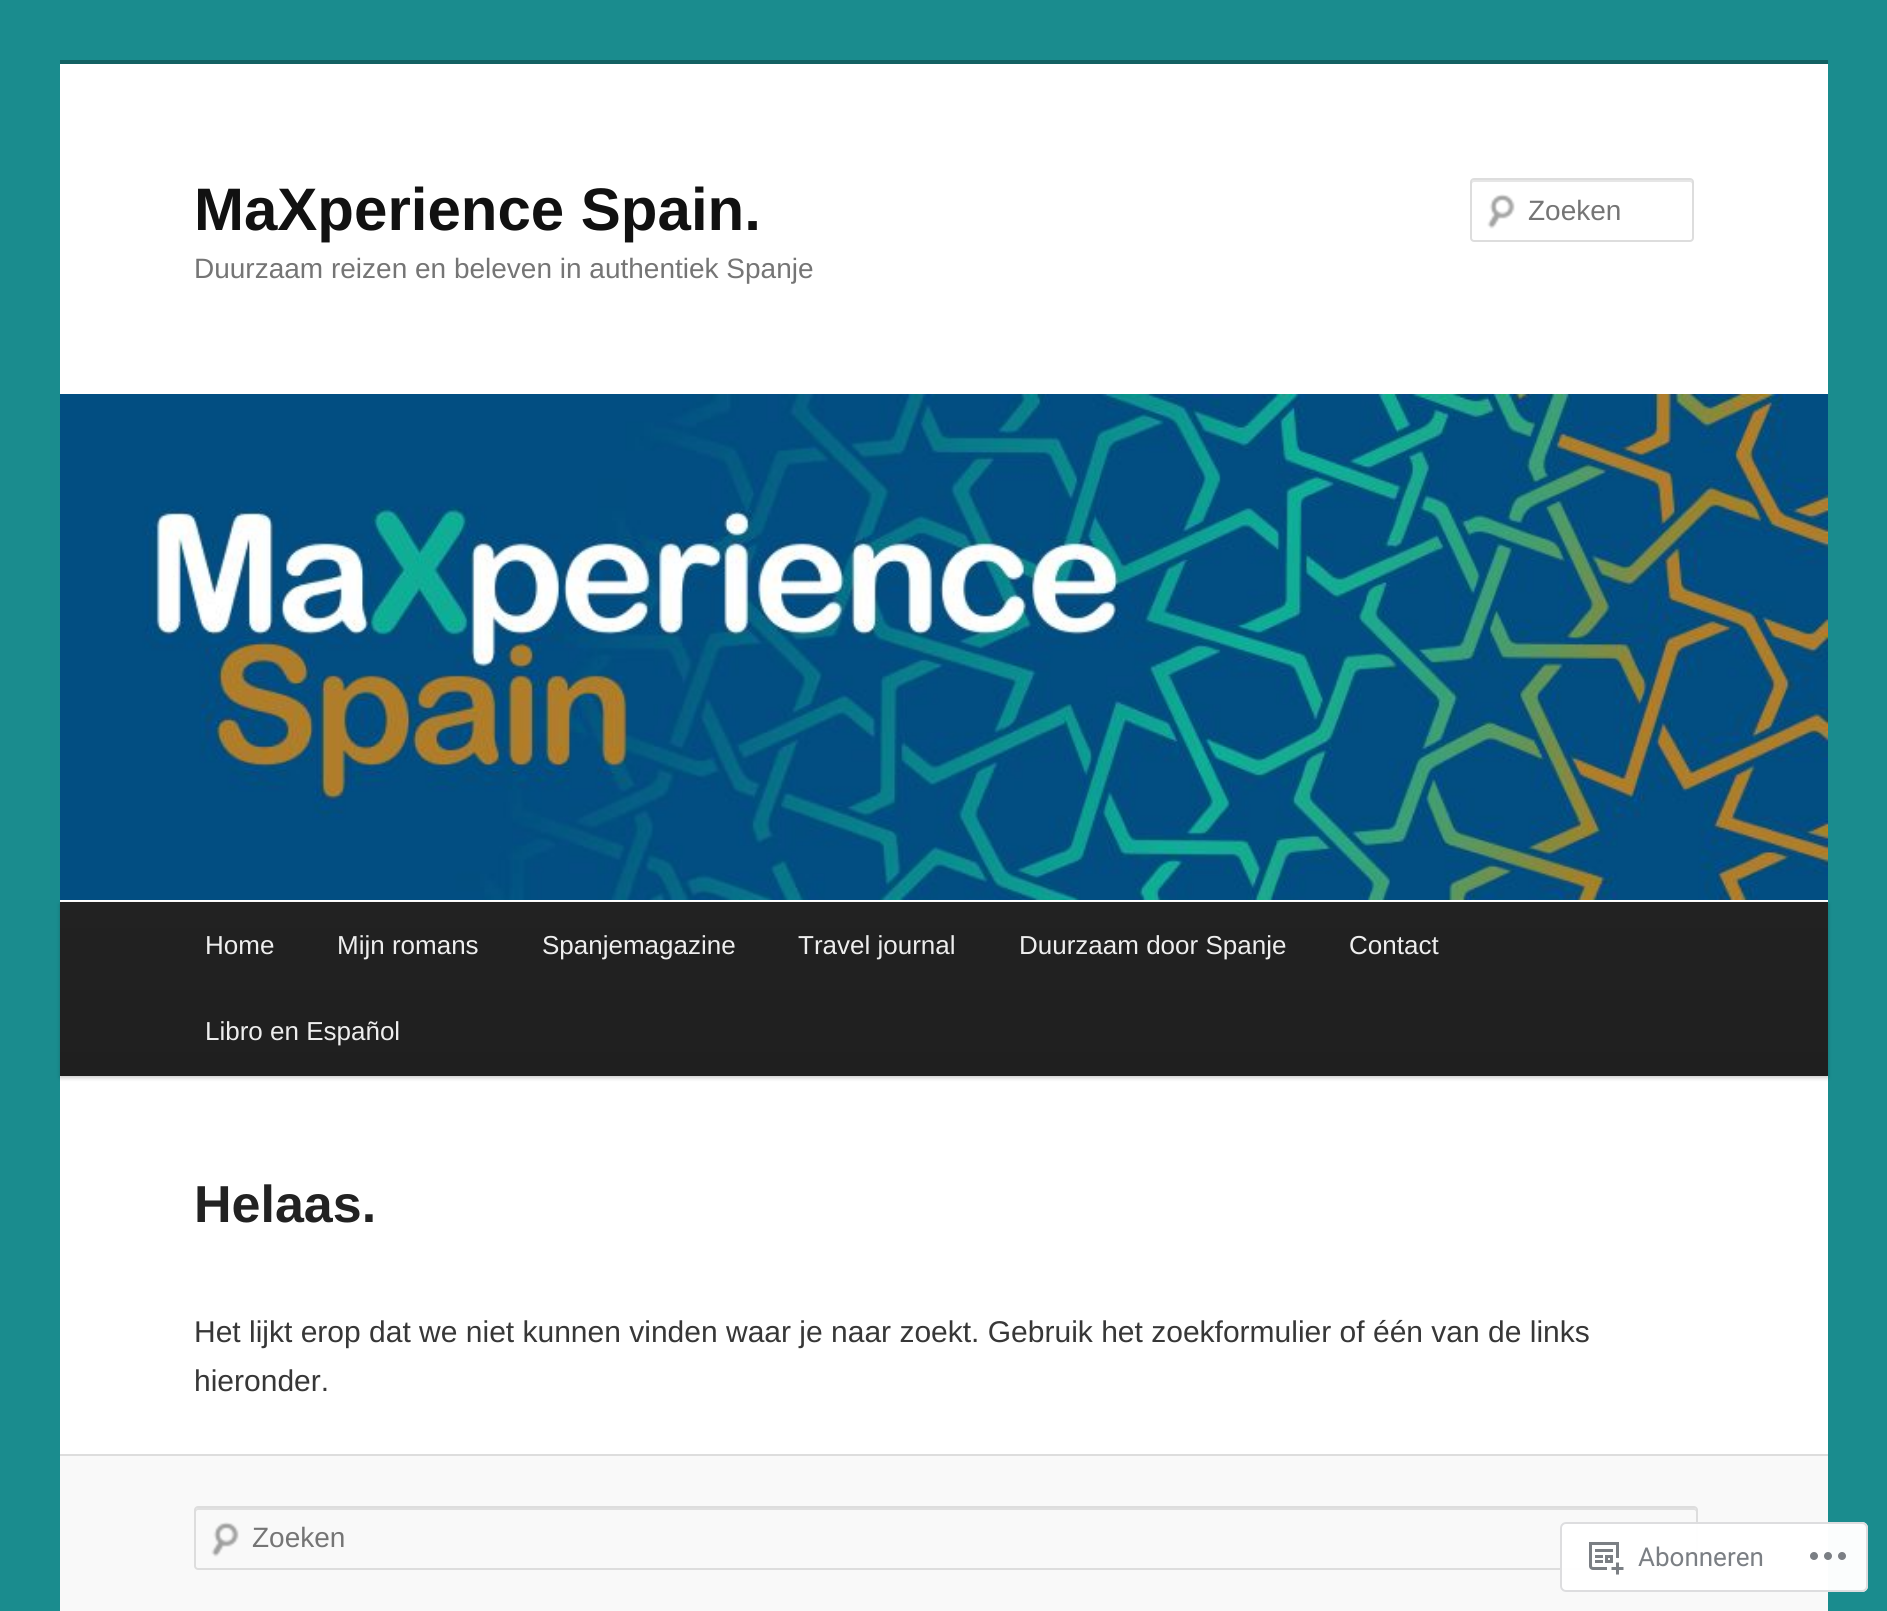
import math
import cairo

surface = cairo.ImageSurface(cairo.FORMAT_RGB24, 1887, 1611)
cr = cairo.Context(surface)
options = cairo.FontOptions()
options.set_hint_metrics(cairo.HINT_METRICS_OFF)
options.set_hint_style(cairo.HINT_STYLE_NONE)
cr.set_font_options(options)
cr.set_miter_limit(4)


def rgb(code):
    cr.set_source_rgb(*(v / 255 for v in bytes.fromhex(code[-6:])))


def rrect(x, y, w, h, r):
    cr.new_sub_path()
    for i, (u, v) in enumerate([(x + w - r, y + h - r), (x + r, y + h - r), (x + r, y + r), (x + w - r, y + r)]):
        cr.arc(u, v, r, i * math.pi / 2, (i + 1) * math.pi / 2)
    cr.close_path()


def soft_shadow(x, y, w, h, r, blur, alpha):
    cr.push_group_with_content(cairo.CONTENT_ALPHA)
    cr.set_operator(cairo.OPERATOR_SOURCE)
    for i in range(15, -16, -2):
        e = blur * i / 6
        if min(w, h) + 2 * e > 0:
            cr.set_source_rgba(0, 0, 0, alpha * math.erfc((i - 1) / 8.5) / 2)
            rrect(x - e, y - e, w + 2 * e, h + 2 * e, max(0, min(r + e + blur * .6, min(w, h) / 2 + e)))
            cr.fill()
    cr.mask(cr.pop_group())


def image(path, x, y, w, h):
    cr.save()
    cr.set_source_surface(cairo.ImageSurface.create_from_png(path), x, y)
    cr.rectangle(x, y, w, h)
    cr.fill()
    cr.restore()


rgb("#1a8c8e")
cr.paint()
rgb("#ffffff")
cr.rectangle(60, 64, 1768, 1390)
cr.fill()
rgb("#126163")
cr.rectangle(60, 60, 1768, 4)
cr.fill()
image("img/1.png", 1487, 194, 28, 35)
rgb("#e6e6e6")
cr.new_path()
cr.move_to(1474, 182)
cr.line_to(1690, 182)
cr.curve_to(1691, 182, 1692, 183, 1692, 184)
cr.line_to(1692, 182)
cr.curve_to(1692, 181, 1691, 180, 1690, 180)
cr.line_to(1474, 180)
cr.curve_to(1473, 180, 1472, 181, 1472, 182)
cr.line_to(1472, 184)
cr.curve_to(1472, 183, 1473, 182, 1474, 182)
cr.close_path()
cr.fill()
rrect(1471, 179, 222, 62, 3)
rgb("#dddddd")
cr.stroke()
rgb("#000000")
soft_shadow(60, 904, 1768, 174, 0, 2, 0.2)
image("img/2.png", 60, 394, 1768, 506)
gradient = cairo.LinearGradient(944, 902, 944, 1076)
gradient.add_color_stop_rgba(0, 0.133, 0.133, 0.133, 1)
gradient.add_color_stop_rgba(1, 0.122, 0.122, 0.122, 1)
cr.set_source(gradient)
cr.rectangle(60, 902, 1768, 174)
cr.fill()
rgb("#f9f9f9")
cr.rectangle(60, 1456, 1768, 155)
cr.fill()
rgb("#dddddd")
cr.rectangle(60, 1454, 1768, 2)
cr.fill()
image("img/3.png", 211, 1522, 28, 35)
rgb("#e0e0e0")
cr.new_path()
cr.move_to(198, 1510)
cr.line_to(1694, 1510)
cr.curve_to(1695, 1510, 1696, 1511, 1696, 1512)
cr.line_to(1696, 1510)
cr.curve_to(1696, 1509, 1695, 1508, 1694, 1508)
cr.line_to(198, 1508)
cr.curve_to(197, 1508, 196, 1509, 196, 1510)
cr.line_to(196, 1512)
cr.curve_to(196, 1511, 197, 1510, 198, 1510)
cr.close_path()
cr.fill()
rrect(195, 1507, 1502, 62, 3)
rgb("#dddddd")
cr.stroke()
cr.set_source_rgba(1, 1, 1, 0.98)
rrect(1560, 1522, 308, 70, 6)
cr.fill()
rrect(1561, 1523, 306, 68, 5)
cr.set_source_rgba(0.863, 0.863, 0.871, 0.98)
cr.stroke()
image("img/4.png", 1589, 1542, 35, 33)
image("img/5.png", 1810, 1552, 36, 8)
cr.select_font_face("Liberation Sans", cairo.FONT_SLANT_NORMAL, cairo.FONT_WEIGHT_BOLD)
cr.set_font_size(60)
rgb("#111111")
cr.move_to(194, 230)
cr.show_text("MaXperience Spain.")
cr.select_font_face("Liberation Sans")
cr.set_font_size(28)
rgb("#757575")
cr.move_to(194, 278)
cr.show_text("Duurzaam reizen en beleven in authentiek Spanje")
cr.move_to(1528, 220)
cr.show_text("Zoeken")
cr.set_font_size(26)
rgb("#eeeeee")
for x, y, s in [
    (205, 954, "Home"),
    (337, 954, "Mijn romans"),
    (542, 954, "Spanjemagazine"),
    (798, 954, "Travel journal"),
    (1019, 954, "Duurzaam door Spanje"),
    (1349, 954, "Contact"),
    (205, 1040, "Libro en Español"),
]:
    cr.move_to(x, y)
    cr.show_text(s)
cr.select_font_face("Liberation Sans", cairo.FONT_SLANT_NORMAL, cairo.FONT_WEIGHT_BOLD)
cr.set_font_size(52)
rgb("#222222")
cr.move_to(194, 1222)
cr.show_text("Helaas.")
cr.select_font_face("Liberation Sans")
cr.set_font_size(30)
rgb("#373737")
cr.move_to(194, 1342)
cr.show_text("Het lijkt erop dat we niet kunnen vinden waar je naar zoekt. Gebruik het zoekformulier of één van de links")
cr.move_to(194, 1391)
cr.show_text("hieronder.")
cr.set_font_size(28)
rgb("#757575")
cr.move_to(252, 1547)
cr.show_text("Zoeken")
cr.select_font_face("Roboto")
cr.set_font_size(26)
rgb("#7b7f84")
cr.move_to(1638, 1566)
cr.show_text("Abonneren")
surface.write_to_png("page.png")
